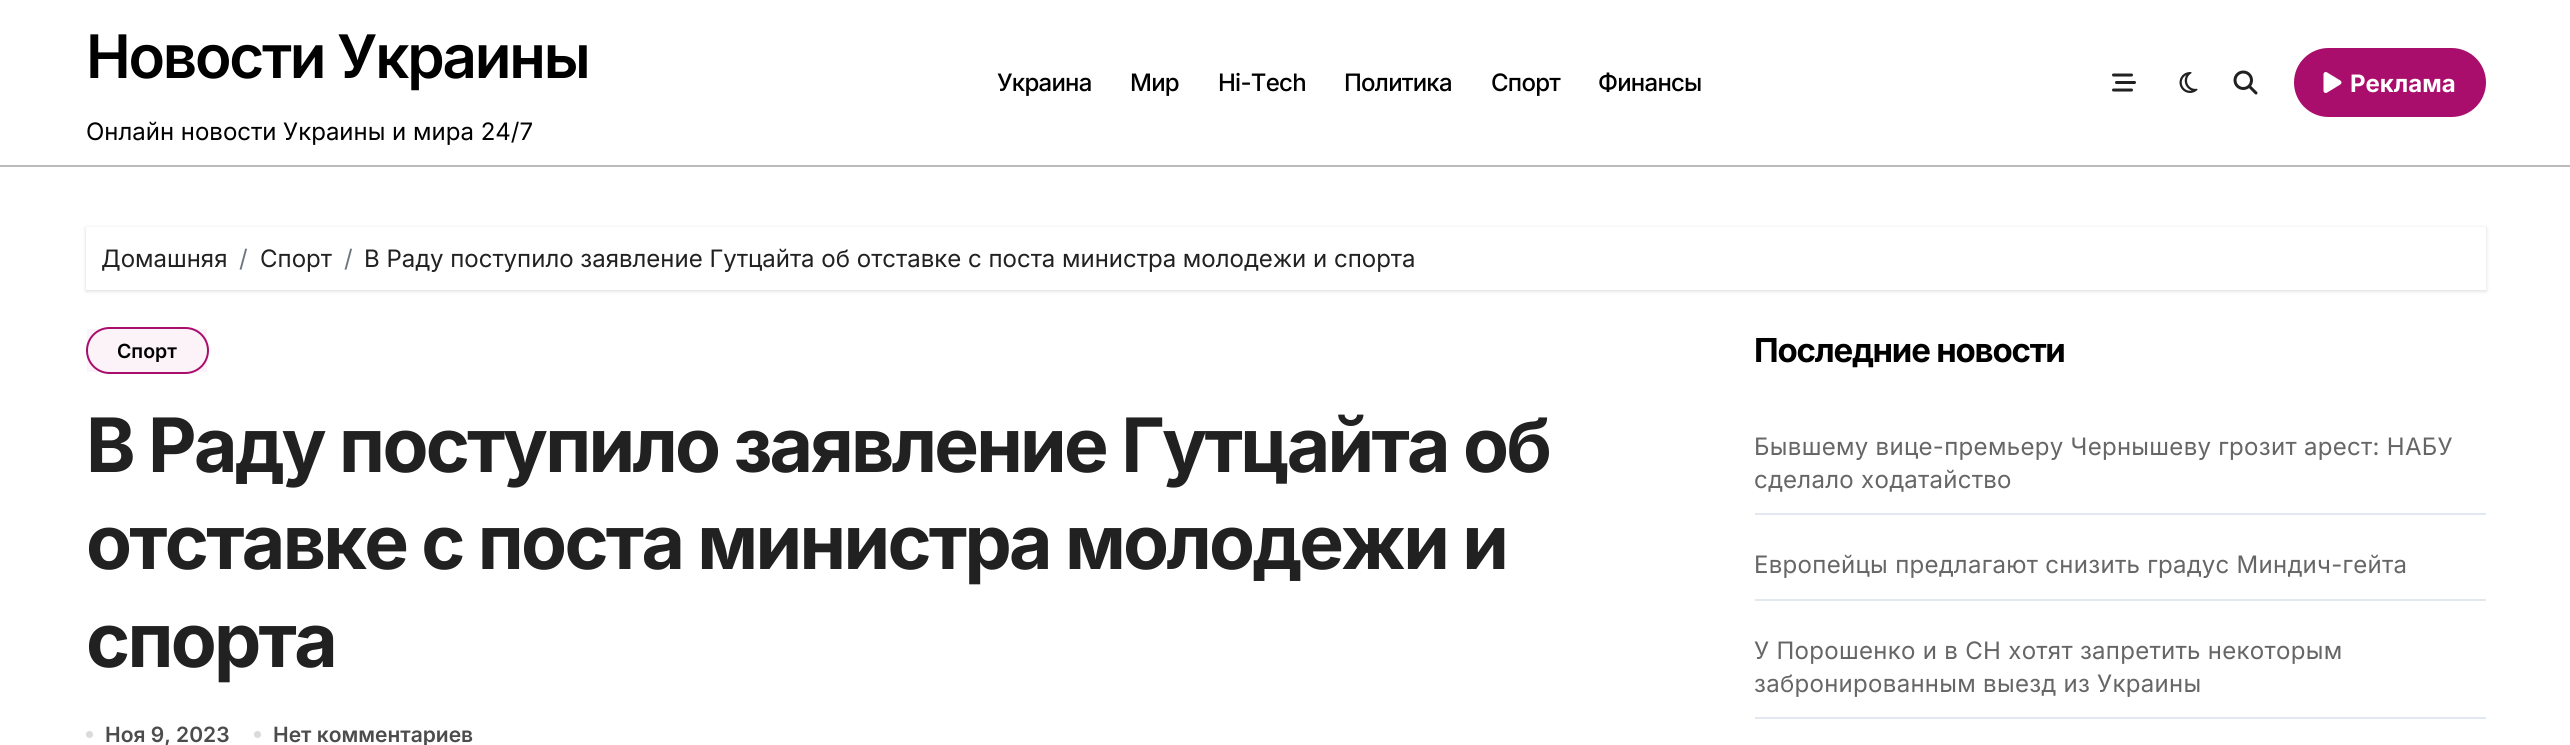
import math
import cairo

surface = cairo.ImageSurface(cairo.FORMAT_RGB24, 2570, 745)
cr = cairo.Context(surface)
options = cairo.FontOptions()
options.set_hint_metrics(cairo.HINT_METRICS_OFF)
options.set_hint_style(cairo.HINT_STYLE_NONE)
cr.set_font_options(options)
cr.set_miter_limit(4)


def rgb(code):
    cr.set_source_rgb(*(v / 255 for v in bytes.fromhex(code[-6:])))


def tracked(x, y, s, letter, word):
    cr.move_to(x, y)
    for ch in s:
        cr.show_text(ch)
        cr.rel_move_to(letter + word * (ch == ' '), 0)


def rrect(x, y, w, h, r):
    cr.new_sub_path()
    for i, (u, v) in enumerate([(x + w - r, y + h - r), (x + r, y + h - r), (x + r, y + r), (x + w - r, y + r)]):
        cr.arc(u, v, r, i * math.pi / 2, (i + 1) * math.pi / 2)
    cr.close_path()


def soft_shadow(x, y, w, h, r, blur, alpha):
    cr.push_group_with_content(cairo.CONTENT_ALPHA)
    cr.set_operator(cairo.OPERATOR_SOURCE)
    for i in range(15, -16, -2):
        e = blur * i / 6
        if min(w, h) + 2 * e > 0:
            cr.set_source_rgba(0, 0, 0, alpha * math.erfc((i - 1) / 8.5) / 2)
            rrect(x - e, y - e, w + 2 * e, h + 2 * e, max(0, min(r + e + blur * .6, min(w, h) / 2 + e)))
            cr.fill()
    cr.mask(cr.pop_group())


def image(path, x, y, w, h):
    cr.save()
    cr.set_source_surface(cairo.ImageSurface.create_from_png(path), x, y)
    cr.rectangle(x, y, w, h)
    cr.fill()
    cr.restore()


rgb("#ffffff")
cr.paint()
rgb("#bbbbbb")
cr.rectangle(0, 165, 2570, 2)
cr.fill()
image("img/1.png", 2112, 73, 24, 19)
image("img/2.png", 2179, 72, 19, 21)
image("img/3.png", 2233, 70, 25, 25)
rgb("#a90e6d")
rrect(2294, 48, 192, 69, 34.5)
cr.fill()
image("img/4.png", 2323, 72, 19, 21)
cr.save()
cr.set_fill_rule(cairo.FILL_RULE_EVEN_ODD)
cr.new_path()
cr.move_to(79, 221)
cr.line_to(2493, 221)
cr.line_to(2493, 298)
cr.line_to(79, 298)
cr.close_path()
cr.move_to(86, 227)
cr.line_to(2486, 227)
cr.line_to(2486, 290)
cr.line_to(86, 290)
cr.close_path()
cr.clip()
rgb("#000000")
soft_shadow(86, 228, 2400, 63, 0, 2, 0.15)
cr.restore()
rrect(87, 328, 121, 45, 22.5)
cr.stroke()
cr.set_source_rgba(0.663, 0.055, 0.427, 0.05)
cr.rectangle(87, 329, 120, 43)
cr.fill()
rgb("#dbdbdb")
cr.arc(89.5, 734.5, 3.5, 0, 2 * math.pi)
cr.fill()
cr.arc(257.5, 734.5, 3.5, 0, 2 * math.pi)
cr.fill()
for x, y, w, h, color in [
    (1755, 513, 731, 2, "#e2e8f0"),
    (1755, 599, 731, 2, "#e2e8f0"),
    (1755, 717, 731, 2, "#e2e8f0"),
]:
    rgb(color)
    cr.rectangle(x, y, w, h)
    cr.fill()
cr.select_font_face("Inter SemiBold")
cr.set_font_size(60)
rgb("#000000")
tracked(86, 78, "Новости Украины", -2.2, 0)
cr.select_font_face("Inter")
cr.set_font_size(24)
cr.move_to(86, 140)
cr.show_text("Онлайн новости Украины и мира 24/7")
cr.select_font_face("Inter Medium")
for x, y, s in [
    (997, 91, "Украина"),
    (1130, 91, "Мир"),
    (1218, 91, "Hi-Tech"),
    (1344, 91, "Политика"),
    (1491, 91, "Спорт"),
    (1598, 91, "Финансы"),
]:
    tracked(x, y, s, -0.75, 0)
cr.select_font_face("Inter", cairo.FONT_SLANT_NORMAL, cairo.FONT_WEIGHT_BOLD)
rgb("#ffffff")
cr.move_to(2350, 92)
cr.show_text("Реклама")
cr.select_font_face("Inter")
rgb("#212121")
cr.move_to(101, 267)
cr.show_text("Домашняя")
rgb("#6c757d")
cr.move_to(239, 267)
cr.show_text("/")
rgb("#212121")
cr.move_to(260, 267)
cr.show_text("Спорт")
rgb("#6c757d")
cr.move_to(344, 267)
cr.show_text("/")
rgb("#212121")
cr.move_to(364, 267)
cr.show_text("В Раду поступило заявление Гутцайта об отставке с поста министра молодежи и спорта")
cr.select_font_face("Inter SemiBold")
cr.set_font_size(19.5)
rgb("#000000")
cr.move_to(117, 358)
cr.show_text("Спорт")
cr.select_font_face("Inter", cairo.FONT_SLANT_NORMAL, cairo.FONT_WEIGHT_BOLD)
cr.set_font_size(75)
rgb("#212121")
for x, y, s in [
    (86, 472, "В Раду поступило заявление Гутцайта об"),
    (86, 569, "отставке с поста министра молодежи и"),
    (86, 667, "спорта"),
]:
    tracked(x, y, s, -2.7, 0)
cr.select_font_face("Inter SemiBold")
cr.set_font_size(21)
rgb("#4c4c4c")
cr.move_to(105, 742)
cr.show_text("Ноя 9, 2023")
cr.move_to(273, 742)
cr.show_text("Нет комментариев")
cr.select_font_face("Inter", cairo.FONT_SLANT_NORMAL, cairo.FONT_WEIGHT_BOLD)
cr.set_font_size(33)
rgb("#000000")
tracked(1754, 362, "Последние новости", -1.2, 0)
cr.select_font_face("Inter")
cr.set_font_size(24)
rgb("#666666")
for x, y, s in [
    (1754, 455, "Бывшему вице-премьеру Чернышеву грозит арест: НАБУ"),
    (1754, 488, "сделало ходатайство"),
    (1754, 573, "Европейцы предлагают снизить градус Миндич-гейта"),
    (1754, 659, "У Порошенко и в СН хотят запретить некоторым"),
    (1754, 692, "забронированным выезд из Украины"),
]:
    tracked(x, y, s, 0.3, 0)
surface.write_to_png("page.png")
